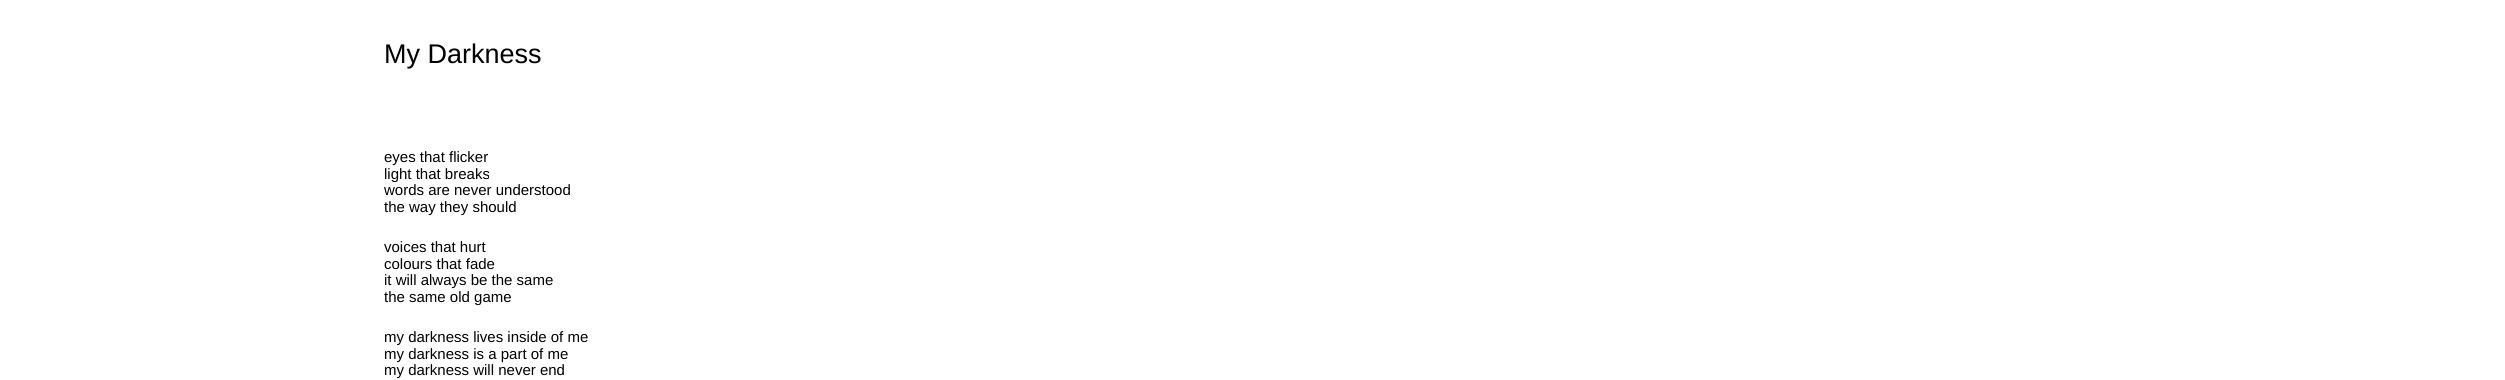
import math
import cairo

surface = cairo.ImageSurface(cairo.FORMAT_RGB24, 2505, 380)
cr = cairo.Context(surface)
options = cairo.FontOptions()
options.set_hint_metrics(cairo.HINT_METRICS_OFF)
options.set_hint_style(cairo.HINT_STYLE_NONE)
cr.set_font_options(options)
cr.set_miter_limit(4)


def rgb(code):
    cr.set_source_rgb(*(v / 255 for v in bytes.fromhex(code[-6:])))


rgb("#ffffff")
cr.paint()
cr.select_font_face("Liberation Sans")
cr.set_font_size(27)
rgb("#000000")
cr.move_to(384, 63)
cr.show_text("My Darkness")
cr.set_font_size(15)
for x, y, s in [
    (384, 162, "eyes that flicker"),
    (384, 179, "light that breaks"),
    (384, 195, "words are never understood"),
    (384, 212, "the way they should"),
    (384, 252, "voices that hurt"),
    (384, 269, "colours that fade"),
    (384, 285, "it will always be the same"),
    (384, 302, "the same old game"),
    (384, 342, "my darkness lives inside of me"),
    (384, 359, "my darkness is a part of me"),
    (384, 375, "my darkness will never end"),
]:
    cr.move_to(x, y)
    cr.show_text(s)
surface.write_to_png("page.png")
